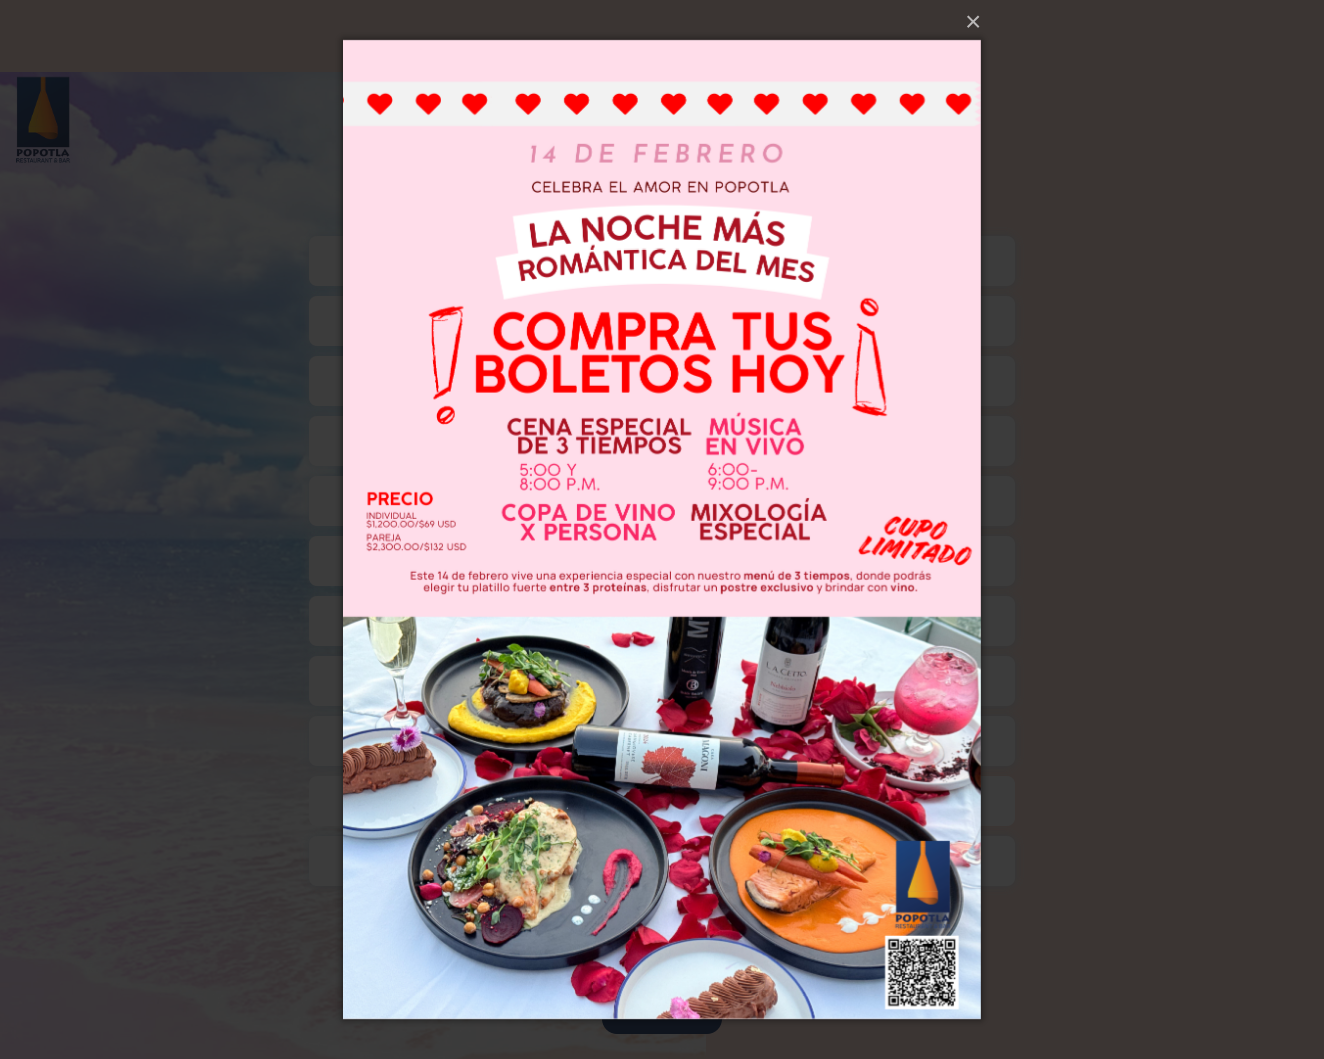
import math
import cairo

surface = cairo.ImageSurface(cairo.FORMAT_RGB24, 1324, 1059)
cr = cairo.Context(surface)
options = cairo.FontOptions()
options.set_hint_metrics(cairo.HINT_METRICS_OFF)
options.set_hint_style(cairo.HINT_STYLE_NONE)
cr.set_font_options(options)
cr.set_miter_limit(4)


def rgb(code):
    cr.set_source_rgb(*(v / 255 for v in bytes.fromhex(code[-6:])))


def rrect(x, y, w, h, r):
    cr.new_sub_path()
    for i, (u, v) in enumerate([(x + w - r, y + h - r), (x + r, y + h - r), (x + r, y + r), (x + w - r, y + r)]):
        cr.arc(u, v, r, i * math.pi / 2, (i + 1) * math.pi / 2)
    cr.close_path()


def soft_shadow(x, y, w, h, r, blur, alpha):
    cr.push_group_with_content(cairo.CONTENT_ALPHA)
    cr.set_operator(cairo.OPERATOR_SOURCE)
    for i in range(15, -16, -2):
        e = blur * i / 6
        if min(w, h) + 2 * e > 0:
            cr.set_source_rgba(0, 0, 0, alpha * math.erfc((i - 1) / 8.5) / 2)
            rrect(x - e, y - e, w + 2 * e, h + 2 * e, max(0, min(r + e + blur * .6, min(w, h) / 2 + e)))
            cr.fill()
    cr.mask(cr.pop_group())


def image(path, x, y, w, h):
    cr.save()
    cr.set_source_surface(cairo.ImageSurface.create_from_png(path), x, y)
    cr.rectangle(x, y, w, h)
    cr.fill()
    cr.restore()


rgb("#3b3533")
cr.paint()
image("img/2.png", 0, 72, 706, 987)
rgb("#333738")
soft_shadow(309, 236, 706, 50, 8, 5, 1)
rgb("#3c3c3c")
rrect(309, 236, 706, 50, 8)
cr.fill()
rgb("#333738")
soft_shadow(309, 296, 706, 50, 8, 5, 1)
rgb("#3c3c3c")
rrect(309, 296, 706, 50, 8)
cr.fill()
rgb("#333738")
soft_shadow(309, 356, 706, 50, 8, 5, 1)
rgb("#3c3c3c")
rrect(309, 356, 706, 50, 8)
cr.fill()
rgb("#333738")
soft_shadow(309, 416, 706, 50, 8, 5, 1)
rgb("#3c3c3c")
rrect(309, 416, 706, 50, 8)
cr.fill()
rgb("#333738")
soft_shadow(309, 476, 706, 50, 8, 5, 1)
rgb("#3c3c3c")
rrect(309, 476, 706, 50, 8)
cr.fill()
rgb("#333738")
soft_shadow(309, 536, 706, 50, 8, 5, 1)
rgb("#3c3c3c")
rrect(309, 536, 706, 50, 8)
cr.fill()
rgb("#333738")
soft_shadow(309, 596, 706, 50, 8, 5, 1)
rgb("#3c3c3c")
rrect(309, 596, 706, 50, 8)
cr.fill()
rgb("#333738")
soft_shadow(309, 656, 706, 50, 8, 5, 1)
rgb("#3c3c3c")
rrect(309, 656, 706, 50, 8)
cr.fill()
rgb("#333738")
soft_shadow(309, 716, 706, 50, 8, 5, 1)
rgb("#3c3c3c")
rrect(309, 716, 706, 50, 8)
cr.fill()
rrect(309, 776, 706, 50, 8)
cr.fill()
rgb("#333738")
soft_shadow(309, 836, 706, 50, 8, 5, 1)
rgb("#3c3c3c")
rrect(309, 836, 706, 50, 8)
cr.fill()
rgb("#0f141d")
rrect(602, 1004, 120, 30, 15)
cr.fill()
rgb("#000000")
soft_shadow(343, 40, 638, 979, 0, 4, 0.6)
rgb("#444444")
cr.rectangle(343, 40, 638, 979)
cr.fill()
image("img/1.png", 343, 39, 638, 981)
image("img/3.png", 16, 76, 55, 87)
cr.select_font_face("Liberation Sans")
cr.set_font_size(28)
rgb("#bab8b8")
cr.move_to(965, 31)
cr.show_text("×")
surface.write_to_png("page.png")
